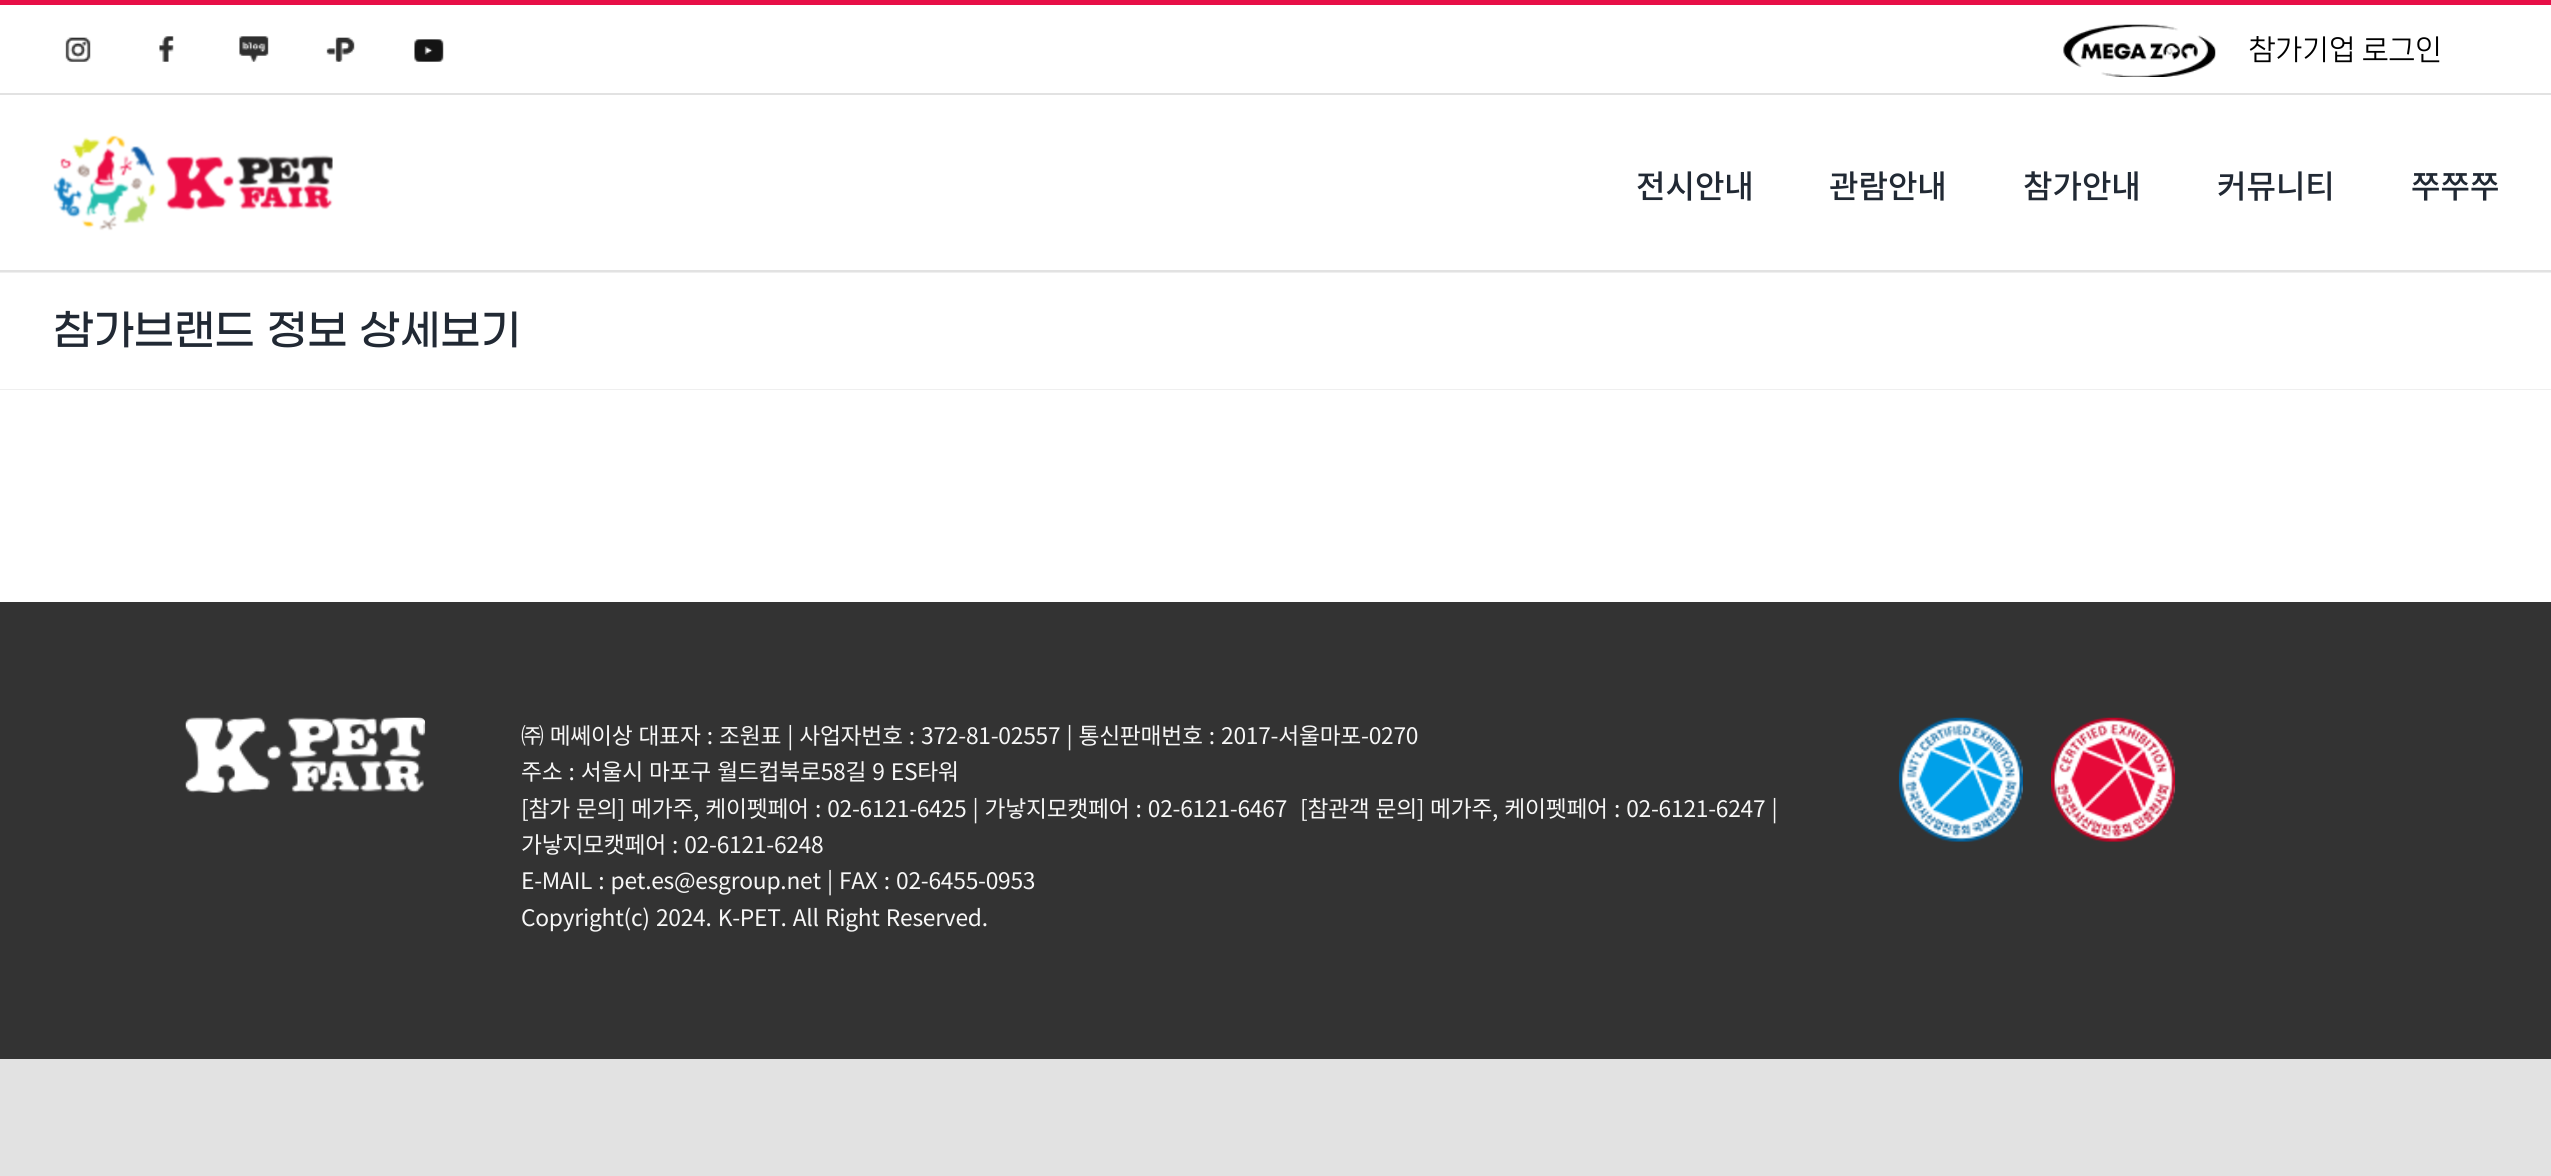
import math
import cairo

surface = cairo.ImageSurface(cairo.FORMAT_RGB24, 2551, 1176)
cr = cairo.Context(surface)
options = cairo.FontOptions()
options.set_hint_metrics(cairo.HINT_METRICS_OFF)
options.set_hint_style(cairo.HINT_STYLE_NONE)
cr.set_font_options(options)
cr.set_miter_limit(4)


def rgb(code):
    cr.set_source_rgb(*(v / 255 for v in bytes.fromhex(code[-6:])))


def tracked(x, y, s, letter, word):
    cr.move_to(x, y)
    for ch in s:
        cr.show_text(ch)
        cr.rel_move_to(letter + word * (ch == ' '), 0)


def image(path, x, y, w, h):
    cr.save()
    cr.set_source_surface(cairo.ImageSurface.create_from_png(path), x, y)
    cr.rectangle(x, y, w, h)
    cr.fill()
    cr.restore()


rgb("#e2e2e2")
cr.paint()
for x, y, w, h, color in [
    (0, 5, 2551, 384, "#ffffff"),
    (0, 0, 2551, 5, "#e70f47"),
    (0, 93, 2551, 2, "#e2e2e2"),
]:
    rgb(color)
    cr.rectangle(x, y, w, h)
    cr.fill()
image("img/1.png", 65, 37, 26, 25)
image("img/2.png", 159, 36, 15, 26)
image("img/3.png", 239, 36, 30, 26)
image("img/4.png", 326, 37, 29, 25)
image("img/5.png", 414, 39, 30, 23)
image("img/6.png", 2063, 24, 153, 53)
cr.rectangle(0, 270, 2551, 2)
cr.fill()
image("img/7.png", 53, 135, 280, 96)
for x, y, w, h, color in [
    (0, 272, 2551, 1, "#efefef"),
    (0, 389, 2551, 1, "#efefef"),
    (0, 390, 2551, 212, "#ffffff"),
    (0, 602, 2551, 457, "#333333"),
]:
    rgb(color)
    cr.rectangle(x, y, w, h)
    cr.fill()
image("img/8.png", 185, 717, 241, 76)
image("img/9.png", 1898, 717, 125, 125)
image("img/10.png", 2051, 717, 125, 125)
cr.select_font_face("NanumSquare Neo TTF")
cr.set_font_size(28)
rgb("#000000")
cr.move_to(2249, 58)
cr.show_text("참가기업 로그인")
cr.select_font_face("Noto Sans KR Medium")
cr.set_font_size(32)
rgb("#212934")
for x, y, s in [
    (1636, 198, "전시안내"),
    (1829, 198, "관람안내"),
    (2023, 198, "참가안내"),
    (2217, 198, "커뮤니티"),
    (2411, 198, "쭈쭈쭈"),
]:
    cr.move_to(x, y)
    cr.show_text(s)
cr.select_font_face("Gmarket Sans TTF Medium")
cr.set_font_size(42)
cr.move_to(53, 343)
cr.show_text("참가브랜드 정보 상세보기")
cr.select_font_face("Noto Sans KR")
cr.set_font_size(22.75)
rgb("#f7f7f7")
for x, y, s in [
    (521, 744, "㈜ 메쎄이상 대표자 : 조원표 | 사업자번호 : 372-81-02557 | 통신판매번호 : 2017-서울마포-0270"),
    (521, 780, "주소 : 서울시 마포구 월드컵북로58길 9 ES타워"),
    (521, 817, "[참가 문의]"),
    (631, 817, "메가주, 케이펫페어 : 02-6121-6425 | 가낳지모캣페어 : 02-6121-6467"),
]:
    tracked(x, y, s, -0.23, 1.25)
tracked(1300, 817, "[참관객 문의]", -0.23, 1)
for x, y, s in [
    (1430, 817, "메가주, 케이펫페어 : 02-6121-6247 |"),
    (521, 853, "가낳지모캣페어 : 02-6121-6248"),
    (521, 889, "E-MAIL : pet.es@esgroup.net | FAX : 02-6455-0953"),
    (521, 926, "Copyright(c) 2024. K-PET. All Right Reserved."),
]:
    tracked(x, y, s, -0.23, 1.25)
surface.write_to_png("page.png")
